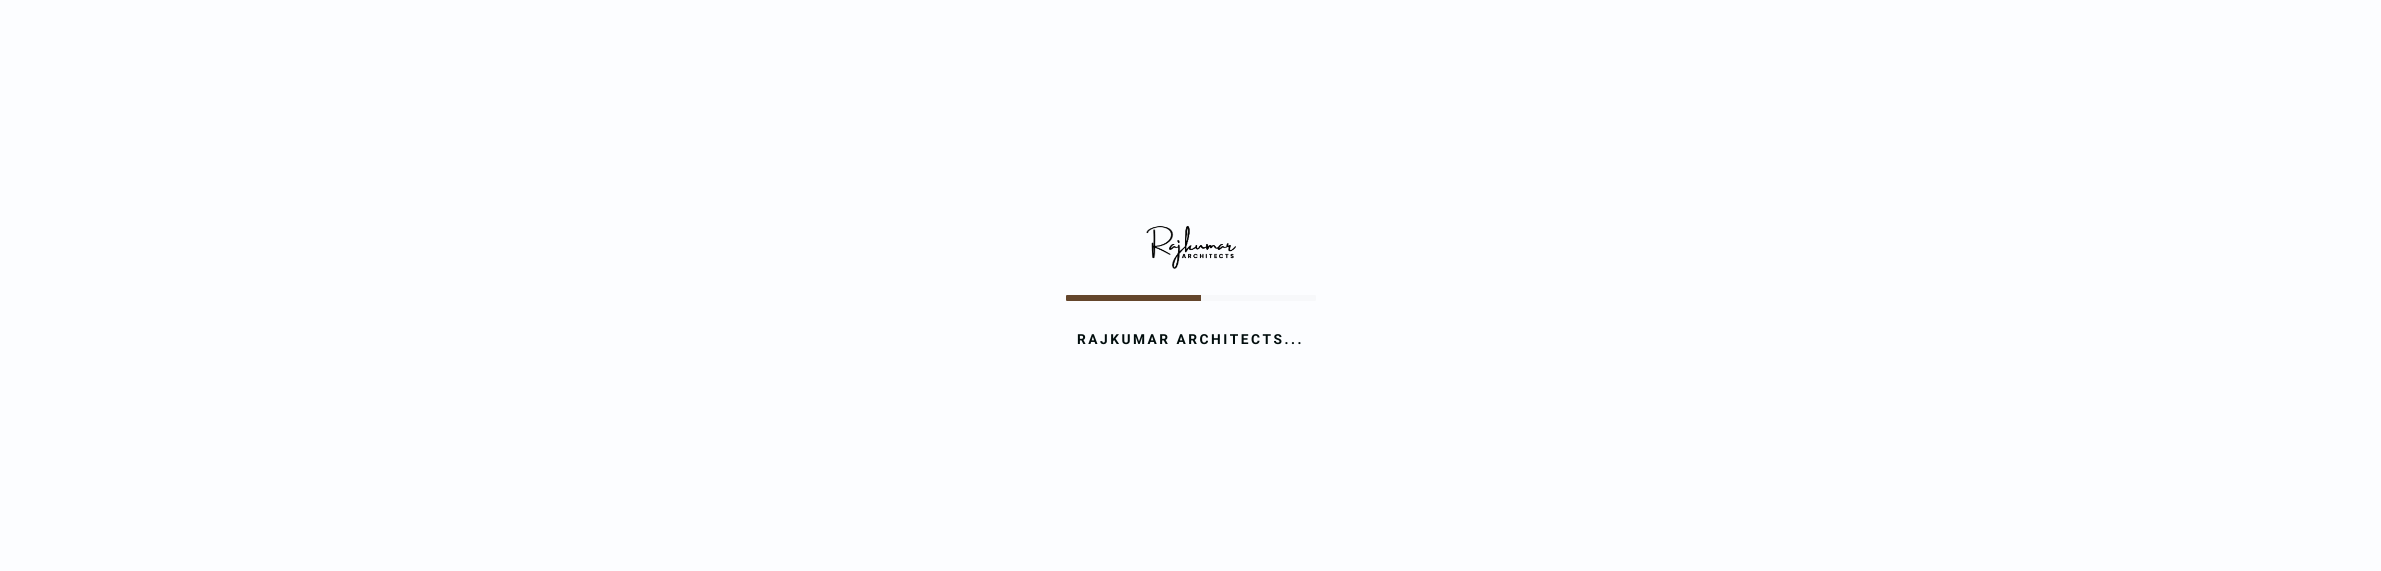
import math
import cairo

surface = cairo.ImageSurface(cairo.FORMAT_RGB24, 2381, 571)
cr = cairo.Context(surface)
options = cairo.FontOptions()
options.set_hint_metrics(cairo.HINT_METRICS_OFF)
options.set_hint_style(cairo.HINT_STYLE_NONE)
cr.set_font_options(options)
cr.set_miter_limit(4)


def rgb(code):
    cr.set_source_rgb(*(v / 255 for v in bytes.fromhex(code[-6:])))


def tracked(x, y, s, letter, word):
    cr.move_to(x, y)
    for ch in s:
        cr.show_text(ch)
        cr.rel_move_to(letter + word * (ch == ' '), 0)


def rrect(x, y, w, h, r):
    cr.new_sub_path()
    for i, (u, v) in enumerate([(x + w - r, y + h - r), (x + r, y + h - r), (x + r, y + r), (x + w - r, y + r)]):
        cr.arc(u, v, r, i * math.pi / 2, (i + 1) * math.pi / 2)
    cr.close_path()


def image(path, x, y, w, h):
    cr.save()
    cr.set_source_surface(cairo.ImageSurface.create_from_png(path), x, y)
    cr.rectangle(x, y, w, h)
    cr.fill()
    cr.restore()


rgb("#fcfdff")
cr.paint()
image("img/1.png", 1146, 225, 90, 44)
rgb("#f7f8fa")
rrect(1066, 295, 250, 6, 1)
cr.fill()
rgb("#64462c")
cr.new_path()
cr.move_to(1067, 295)
cr.line_to(1201, 295)
cr.line_to(1201, 301)
cr.line_to(1067, 301)
cr.curve_to(1066.5, 301, 1066, 300.5, 1066, 300)
cr.line_to(1066, 296)
cr.curve_to(1066, 295.5, 1066.5, 295, 1067, 295)
cr.close_path()
cr.fill()
cr.select_font_face("Roboto", cairo.FONT_SLANT_NORMAL, cairo.FONT_WEIGHT_BOLD)
cr.set_font_size(13.75)
rgb("#010d0d")
tracked(1077, 344, "RAJKUMAR ARCHITECTS...", 2.5, 0)
surface.write_to_png("page.png")
